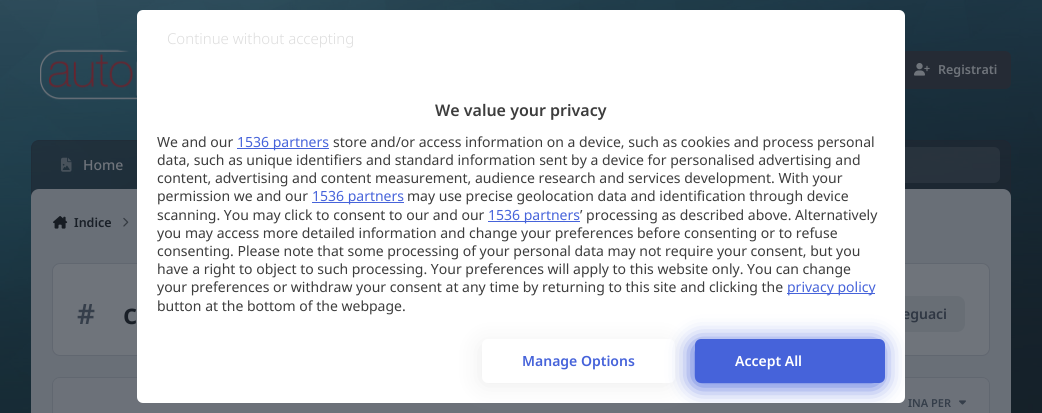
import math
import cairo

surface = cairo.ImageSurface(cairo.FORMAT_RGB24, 1042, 413)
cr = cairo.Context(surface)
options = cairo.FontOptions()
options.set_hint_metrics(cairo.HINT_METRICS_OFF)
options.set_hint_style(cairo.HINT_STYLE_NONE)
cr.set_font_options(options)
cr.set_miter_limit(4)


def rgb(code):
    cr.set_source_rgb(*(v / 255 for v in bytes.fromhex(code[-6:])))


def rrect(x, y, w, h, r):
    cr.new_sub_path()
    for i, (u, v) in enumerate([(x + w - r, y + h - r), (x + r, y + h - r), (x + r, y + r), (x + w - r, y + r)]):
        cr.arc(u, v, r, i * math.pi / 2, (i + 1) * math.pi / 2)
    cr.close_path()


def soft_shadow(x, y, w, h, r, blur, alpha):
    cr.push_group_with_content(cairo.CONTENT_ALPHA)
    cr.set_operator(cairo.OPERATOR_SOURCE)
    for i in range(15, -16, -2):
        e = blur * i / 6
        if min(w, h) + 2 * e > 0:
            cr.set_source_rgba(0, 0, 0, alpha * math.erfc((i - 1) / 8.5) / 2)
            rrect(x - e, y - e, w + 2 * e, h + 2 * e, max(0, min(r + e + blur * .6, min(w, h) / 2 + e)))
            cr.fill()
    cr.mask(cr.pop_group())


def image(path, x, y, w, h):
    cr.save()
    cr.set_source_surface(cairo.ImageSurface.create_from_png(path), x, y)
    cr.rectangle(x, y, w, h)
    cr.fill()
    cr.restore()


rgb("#ffffff")
cr.paint()
image("img/1.png", 0, 0, 1042, 413)
image("img/2.png", 40, 42, 97, 58)
rgb("#252b35")
rrect(901, 51, 110, 38, 6)
cr.fill()
image("img/3.png", 914, 63, 16, 13)
cr.set_source_rgba(0.125, 0.153, 0.192, 0.6)
cr.new_path()
cr.move_to(39, 140)
cr.line_to(1003, 140)
cr.curve_to(1007.5, 140, 1011, 143.5, 1011, 148)
cr.line_to(1011, 199)
cr.line_to(31, 199)
cr.line_to(31, 148)
cr.curve_to(31, 143.5, 34.5, 140, 39, 140)
cr.close_path()
cr.fill()
cr.set_source_rgba(0.125, 0.153, 0.192, 0.25)
cr.set_fill_rule(cairo.FILL_RULE_EVEN_ODD)
cr.new_path()
cr.move_to(39, 140)
cr.line_to(1003, 140)
cr.curve_to(1007, 140, 1011, 144, 1011, 148)
cr.line_to(1011, 199)
cr.line_to(31, 199)
cr.line_to(31, 148)
cr.curve_to(31, 144, 35, 140, 39, 140)
cr.close_path()
cr.move_to(39, 141)
cr.line_to(1003, 141)
cr.curve_to(1007, 141, 1010, 144, 1010, 148)
cr.line_to(1010, 199)
cr.line_to(32, 199)
cr.line_to(32, 148)
cr.curve_to(32, 144, 35, 141, 39, 141)
cr.close_path()
cr.fill()
image("img/4.png", 61, 157, 11, 15)
cr.set_source_rgba(0.435, 0.455, 0.482, 0.15)
rrect(720, 147, 280, 36, 6)
cr.fill()
rgb("#696f77")
rrect(31, 189, 980, 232, 8)
cr.fill()
image("img/5.png", 53, 216, 15, 13)
image("img/6.png", 123, 217, 6, 10)
rgb("#6f747b")
rrect(52.5, 263.5, 937, 92, 7.5)
cr.fill_preserve()
rgb("#616770")
cr.set_line_width(1)
cr.stroke()
rgb("#686e75")
rrect(854, 296, 111, 36, 8)
cr.fill()
rrect(52.5, 377.5, 937, 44, 7.5)
rgb("#616770")
cr.stroke()
rgb("#6c7179")
cr.new_path()
cr.move_to(60, 378)
cr.line_to(982, 378)
cr.curve_to(986, 378, 989, 381, 989, 385)
cr.line_to(989, 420)
cr.line_to(53, 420)
cr.line_to(53, 385)
cr.curve_to(53, 381, 56, 378, 60, 378)
cr.close_path()
cr.fill()
image("img/7.png", 959, 400, 7, 5)
cr.select_font_face("Noto Sans SemiBold")
cr.set_font_size(12.5)
rgb("#6f747b")
cr.move_to(938, 74)
cr.show_text("Registrati")
cr.select_font_face("Noto Sans Medium")
cr.set_font_size(14)
cr.move_to(83, 170)
cr.show_text("Home")
cr.select_font_face("Noto Sans SemiBold")
cr.set_font_size(12.5)
rgb("#191f27")
cr.move_to(74, 227)
cr.show_text("Indice")
cr.set_font_size(28)
rgb("#353e4a")
cr.move_to(77, 324)
cr.show_text("#")
rgb("#191f27")
cr.move_to(123, 324)
cr.show_text("c")
cr.set_font_size(14)
rgb("#2f3743")
cr.move_to(902, 319)
cr.show_text("eguaci")
rgb("#ffffff")
rrect(137, 10, 768, 393, 6)
cr.fill()
rgb("#c4c4c4")
soft_shadow(479, 342, 193, 44, 6, 11, 0.3)
rgb("#ffffff")
rrect(482, 339, 193, 44, 6)
cr.fill()
cr.save()
cr.set_fill_rule(cairo.FILL_RULE_WINDING)
rrect(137, 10, 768, 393, 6)
cr.clip()
rgb("#4663da")
soft_shadow(692, 342, 190, 44, 6, 11, 1)
cr.restore()
rgb("#4663da")
rrect(695, 339, 190, 44, 6)
cr.fill()
rgb("#ffffff")
cr.move_to(735, 366)
cr.show_text("Accept All")
rgb("#4663da")
cr.move_to(522, 366)
cr.show_text("Manage Options")
cr.select_font_face("Noto Sans Light")
cr.set_font_size(15)
rgb("#dddddd")
cr.move_to(167, 44)
cr.show_text("Continue without accepting")
cr.select_font_face("Noto Sans")
cr.set_font_size(14)
rgb("#3d3d3d")
cr.move_to(157, 311)
cr.show_text("button at the bottom of the webpage.")
rgb("#4663da")
cr.rectangle(787, 293, 88, 1)
cr.fill()
cr.move_to(787, 292)
cr.show_text("privacy policy")
rgb("#3d3d3d")
for x, y, s in [
    (157, 292, "your preferences or withdraw your consent at any time by returning to this site and clicking the"),
    (157, 274, "have a right to object to such processing. Your preferences will apply to this website only. You can change"),
    (157, 256, "consenting. Please note that some processing of your personal data may not require your consent, but you"),
    (157, 238, "you may access more detailed information and change your preferences before consenting or to refuse"),
    (580, 220, "’ processing as described above. Alternatively"),
]:
    cr.move_to(x, y)
    cr.show_text(s)
rgb("#4663da")
cr.rectangle(488, 221, 92, 1)
cr.fill()
cr.move_to(488, 220)
cr.show_text("1536 partners")
rgb("#3d3d3d")
cr.move_to(157, 220)
cr.show_text("scanning. You may click to consent to our and our")
cr.move_to(407, 201)
cr.show_text("may use precise geolocation data and identification through device")
rgb("#4663da")
cr.rectangle(312, 202, 92, 1)
cr.fill()
cr.move_to(312, 201)
cr.show_text("1536 partners")
rgb("#3d3d3d")
for x, y, s in [
    (157, 201, "permission we and our"),
    (157, 183, "content, advertising and content measurement, audience research and services development. With your"),
    (157, 165, "data, such as unique identifiers and standard information sent by a device for personalised advertising and"),
    (333, 147, "store and/or access information on a device, such as cookies and process personal"),
]:
    cr.move_to(x, y)
    cr.show_text(s)
rgb("#4663da")
cr.rectangle(237, 148, 92, 1)
cr.fill()
cr.move_to(237, 147)
cr.show_text("1536 partners")
rgb("#3d3d3d")
cr.move_to(157, 147)
cr.show_text("We and our")
cr.select_font_face("Noto Sans SemiBold")
cr.set_font_size(16)
cr.move_to(435, 116)
cr.show_text("We value your privacy")
cr.set_font_size(11)
rgb("#353e4a")
cr.move_to(908, 407)
cr.show_text("INA PER")
surface.write_to_png("page.png")
